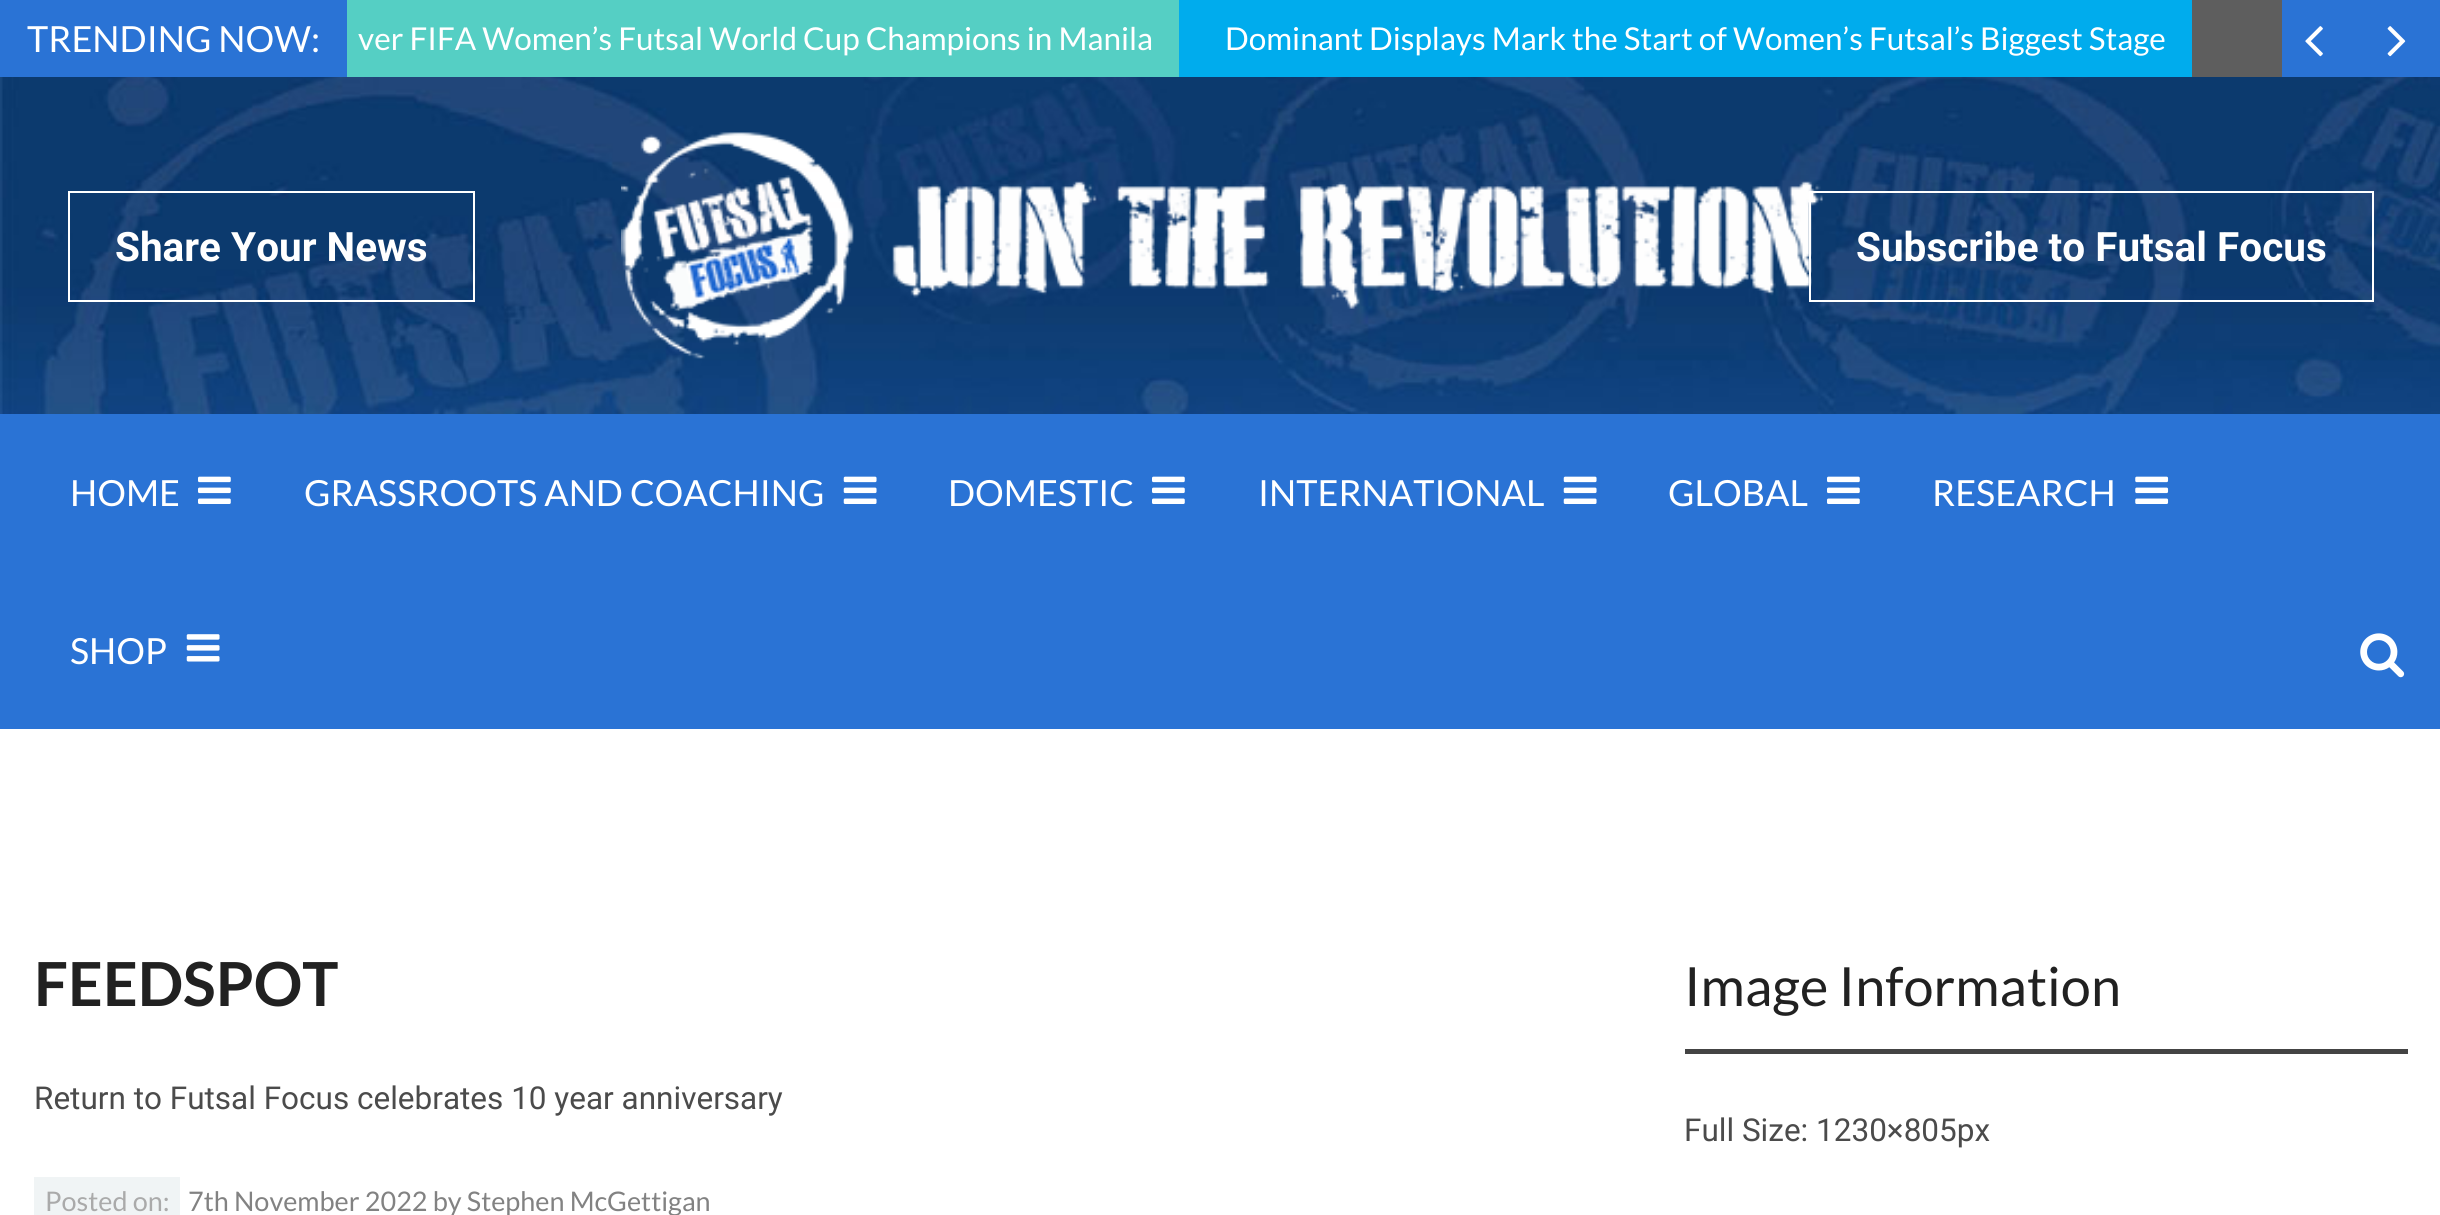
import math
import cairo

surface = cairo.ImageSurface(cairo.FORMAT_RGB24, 2440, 1215)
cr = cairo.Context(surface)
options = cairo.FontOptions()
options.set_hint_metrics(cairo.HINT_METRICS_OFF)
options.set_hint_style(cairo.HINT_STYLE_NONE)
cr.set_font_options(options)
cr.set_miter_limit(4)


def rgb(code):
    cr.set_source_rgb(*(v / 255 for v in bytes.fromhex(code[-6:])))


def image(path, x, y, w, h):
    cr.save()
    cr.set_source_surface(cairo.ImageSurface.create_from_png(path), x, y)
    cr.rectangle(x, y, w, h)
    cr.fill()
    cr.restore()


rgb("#ffffff")
cr.paint()
image("img/1.png", 0, 77, 2440, 337)
for x, y, w, h, color in [
    (0, 0, 347, 77, "#2a73d5"),
    (2192, 0, 90, 77, "#5e5e5e"),
    (347, 0, 832, 77, "#55cfc4"),
    (1179, 0, 1013, 77, "#00aced"),
    (2282, 0, 158, 77, "#2a73d5"),
]:
    rgb(color)
    cr.rectangle(x, y, w, h)
    cr.fill()
image("img/2.png", 2305, 26, 18, 31)
image("img/3.png", 2387, 26, 19, 31)
image("img/4.png", 621, 132, 1202, 227)
cr.rectangle(69, 192, 405, 109)
rgb("#ffffff")
cr.stroke()
cr.rectangle(1810, 192, 563, 109)
cr.stroke()
rgb("#2a73d5")
cr.rectangle(0, 414, 2440, 315)
cr.fill()
image("img/5.png", 198, 476, 33, 28)
image("img/6.png", 843, 476, 34, 28)
image("img/5.png", 1152, 476, 33, 28)
image("img/6.png", 1563, 476, 34, 28)
image("img/5.png", 1827, 476, 33, 28)
image("img/7.png", 2135, 476, 34, 28)
image("img/8.png", 186, 634, 34, 28)
image("img/9.png", 2360, 633, 45, 45)
rgb("#f0f4f5")
cr.rectangle(34, 1177, 146, 38)
cr.fill()
rgb("#444444")
cr.rectangle(1685, 1049, 723, 5)
cr.fill()
cr.select_font_face("Lato")
cr.set_font_size(36)
rgb("#ffffff")
cr.move_to(27, 52)
cr.show_text("TRENDING NOW:")
cr.set_font_size(31.5)
cr.move_to(358, 50)
cr.show_text("ver FIFA Women’s Futsal World Cup Champions in Manila")
cr.move_to(1225, 50)
cr.show_text("Dominant Displays Mark the Start of Women’s Futsal’s Biggest Stage")
cr.select_font_face("Roboto", cairo.FONT_SLANT_NORMAL, cairo.FONT_WEIGHT_BOLD)
cr.set_font_size(40.5)
cr.move_to(115, 261)
cr.show_text("Share Your News")
cr.move_to(1856, 261)
cr.show_text("Subscribe to Futsal Focus")
cr.select_font_face("Lato")
cr.set_font_size(36)
for x, y, s in [
    (70, 506, "HOME"),
    (304, 506, "GRASSROOTS AND COACHING"),
    (948, 506, "DOMESTIC"),
    (1258, 506, "INTERNATIONAL"),
    (1668, 506, "GLOBAL"),
    (1932, 506, "RESEARCH"),
    (70, 664, "SHOP"),
]:
    cr.move_to(x, y)
    cr.show_text(s)
cr.select_font_face("Lato", cairo.FONT_SLANT_NORMAL, cairo.FONT_WEIGHT_BOLD)
cr.set_font_size(60.75)
rgb("#212121")
cr.move_to(34, 1006)
cr.show_text("FEEDSPOT")
cr.select_font_face("Roboto")
cr.set_font_size(31.5)
rgb("#4b4b4b")
cr.move_to(34, 1109)
cr.show_text("Return to Futsal Focus celebrates 10 year anniversary")
cr.select_font_face("Lato")
cr.set_font_size(27)
rgb("#aaaaaa")
cr.move_to(45, 1211)
cr.show_text("Posted on:")
rgb("#828282")
cr.move_to(188, 1211)
cr.show_text("7th November 2022 by Stephen McGettigan")
cr.set_font_size(54)
rgb("#212121")
cr.move_to(1684, 1006)
cr.show_text("Image Information")
cr.select_font_face("Roboto")
cr.set_font_size(31.5)
rgb("#4b4b4b")
cr.move_to(1684, 1141)
cr.show_text("Full Size: 1230×805px")
surface.write_to_png("page.png")
